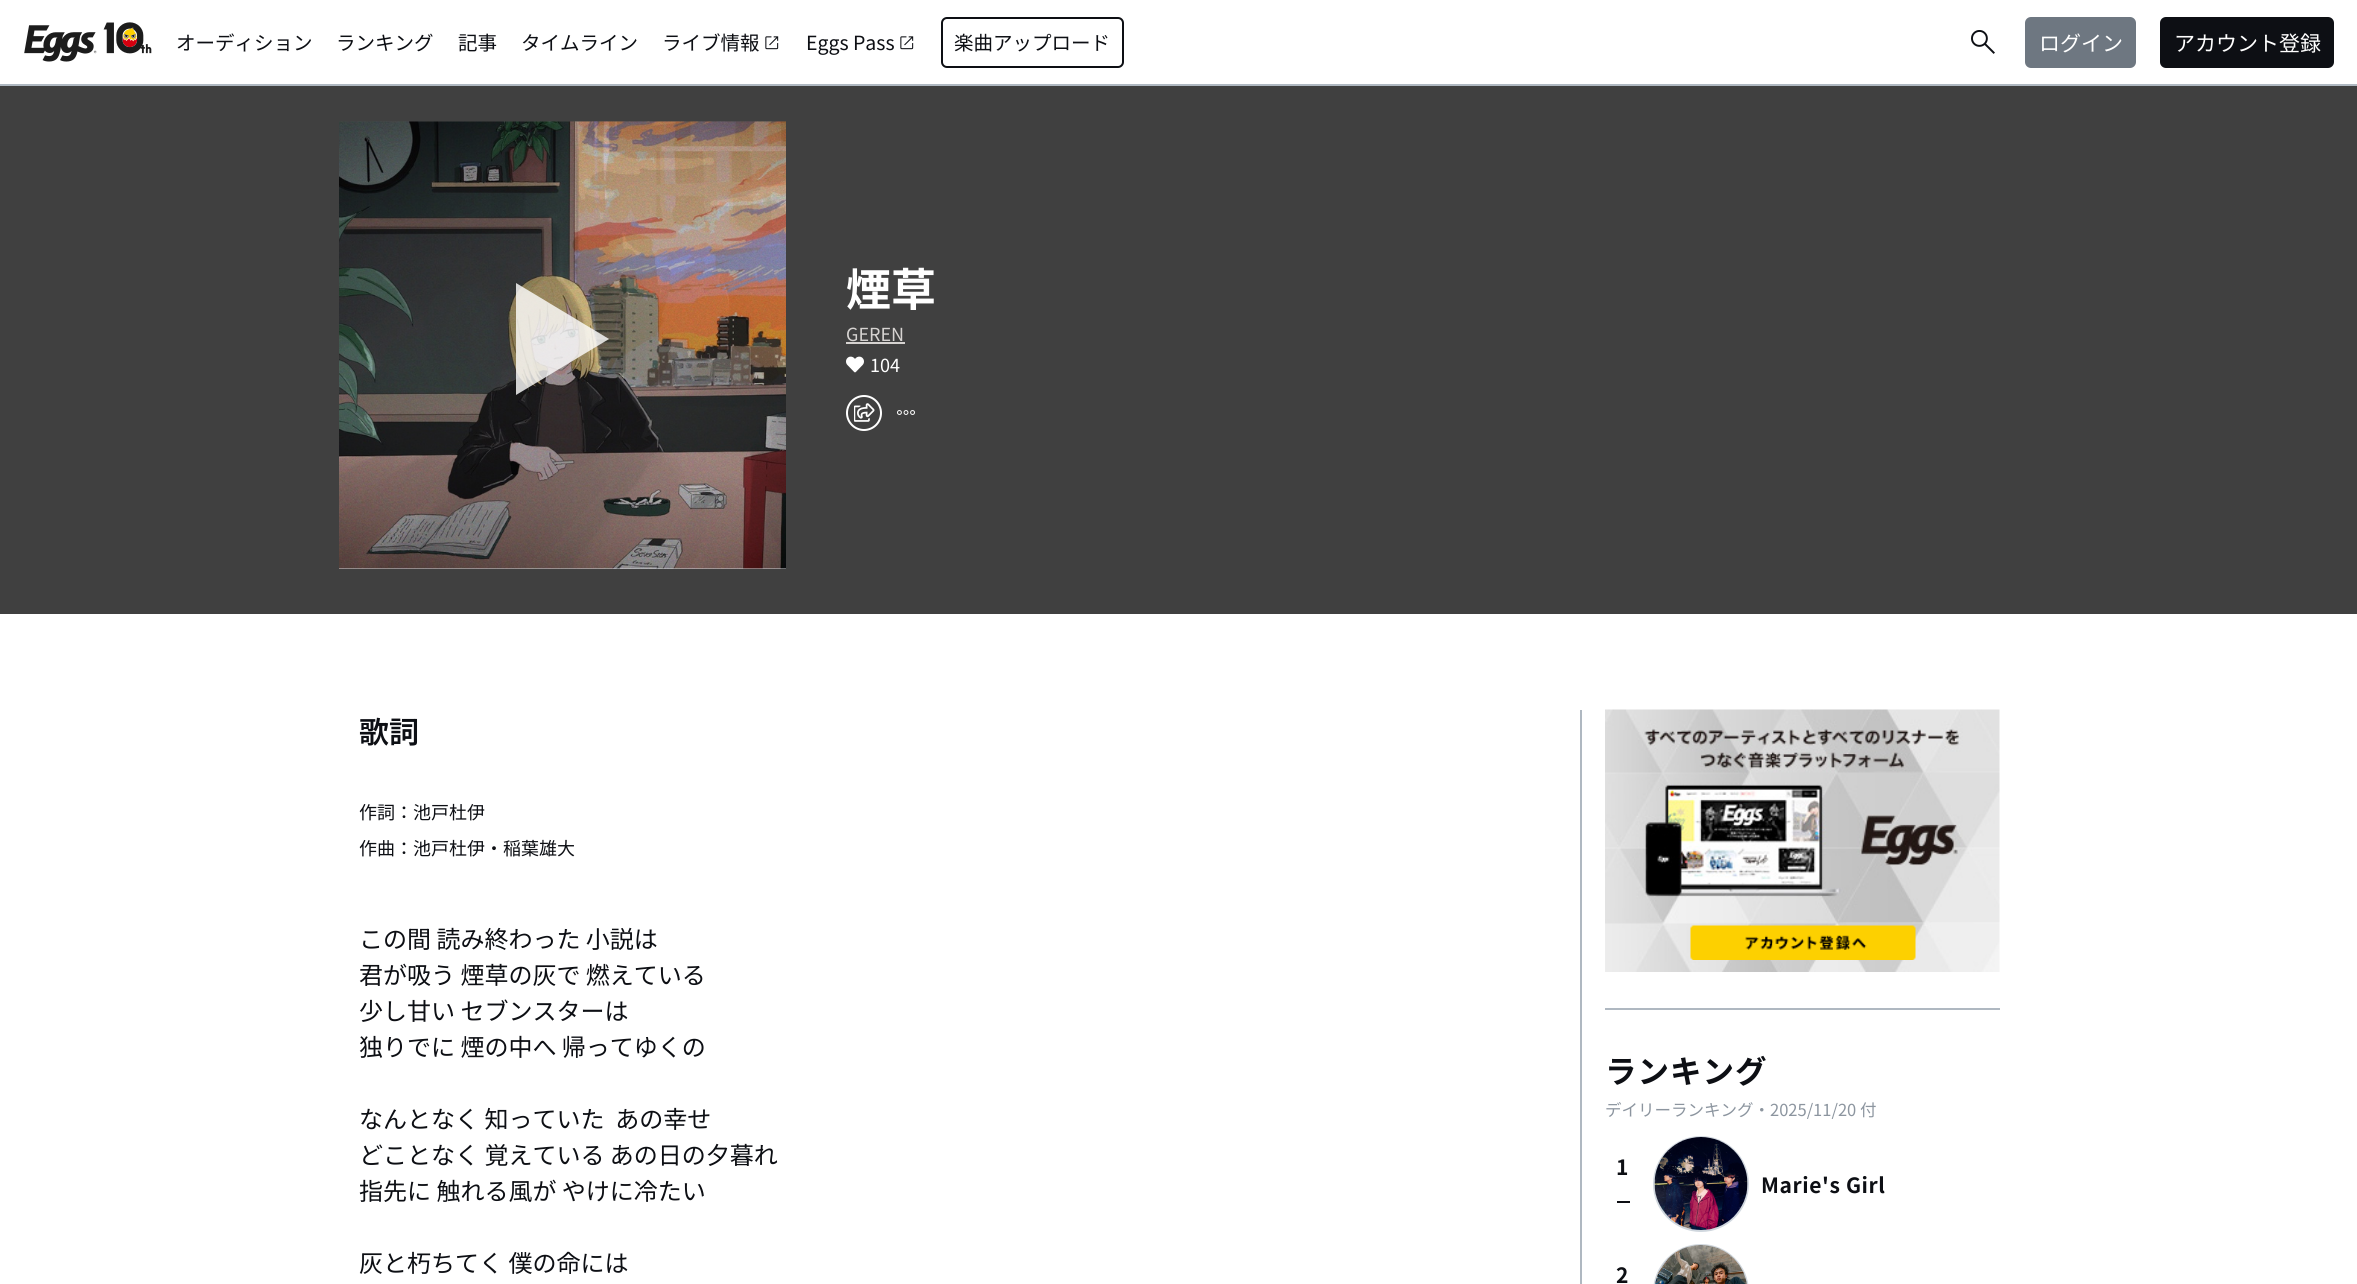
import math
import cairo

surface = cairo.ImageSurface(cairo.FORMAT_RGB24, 2357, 1284)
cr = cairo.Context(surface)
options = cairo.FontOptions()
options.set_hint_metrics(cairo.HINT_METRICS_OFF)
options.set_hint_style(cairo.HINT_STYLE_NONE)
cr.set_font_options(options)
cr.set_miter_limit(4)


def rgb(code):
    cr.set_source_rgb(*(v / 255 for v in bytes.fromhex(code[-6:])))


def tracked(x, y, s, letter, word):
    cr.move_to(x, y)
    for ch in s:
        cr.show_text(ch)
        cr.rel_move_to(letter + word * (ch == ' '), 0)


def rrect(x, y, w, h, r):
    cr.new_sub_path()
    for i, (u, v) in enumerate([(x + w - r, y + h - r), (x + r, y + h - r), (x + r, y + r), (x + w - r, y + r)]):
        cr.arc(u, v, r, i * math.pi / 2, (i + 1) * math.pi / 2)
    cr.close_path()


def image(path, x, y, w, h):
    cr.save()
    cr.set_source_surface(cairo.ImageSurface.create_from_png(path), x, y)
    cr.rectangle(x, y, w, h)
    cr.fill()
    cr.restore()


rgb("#ffffff")
cr.paint()
rgb("#afb8c1")
cr.rectangle(0, 84, 2357, 2)
cr.fill()
image("img/1.png", 24, 22, 128, 40)
image("img/2.png", 765, 36, 14, 14)
image("img/2.png", 900, 36, 14, 14)
rrect(942, 18, 181, 49, 5)
rgb("#0d0f14")
cr.stroke()
image("img/3.png", 1971, 30, 24, 24)
rgb("#6e7781")
rrect(2026, 18, 109, 49, 5)
cr.fill_preserve()
cr.stroke()
rgb("#0d0f14")
rrect(2161, 18, 172, 49, 5)
cr.fill_preserve()
cr.stroke()
rgb("#404040")
cr.rectangle(0, 86, 2357, 528)
cr.fill()
rgb("#d3d5d8")
cr.rectangle(339, 568, 447, 1)
cr.fill()
image("img/4.png", 339, 121, 447, 448)
cr.set_source_rgba(1, 1, 1, 0.8)
cr.new_path()
cr.move_to(516, 395)
cr.line_to(609, 339)
cr.line_to(516, 283)
cr.close_path()
cr.fill()
rgb("#d6d3d1")
cr.rectangle(846, 342, 59, 2)
cr.fill()
image("img/5.png", 846, 356, 18, 17)
cr.arc(864, 413, 17, 0, 2 * math.pi)
rgb("#ffffff")
cr.stroke()
image("img/6.png", 854, 403, 21, 19)
image("img/7.png", 897, 410, 18, 5)
rgb("#afb8c1")
cr.rectangle(1580, 710, 2, 574)
cr.fill()
cr.rectangle(1605, 1008, 395, 2)
cr.fill()
image("img/8.png", 1605, 709, 395, 263)
image("img/9.png", 1690, 925, 226, 35)
rgb("#0d0f14")
cr.rectangle(1617, 1201, 13, 2)
cr.fill()
cr.arc(1701, 1184, 47, 0, 2 * math.pi)
rgb("#d0d7de")
cr.stroke()
image("img/10.png", 1654, 1137, 94, 93)
rrect(1654, 1245, 94, 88, 47)
cr.stroke()
image("img/11.png", 1655, 1245, 92, 39)
cr.select_font_face("Noto Sans JP")
cr.set_font_size(19.5)
rgb("#0d0f14")
for x, y, s in [
    (176, 50, "オーディション"),
    (336, 50, "ランキング"),
    (458, 50, "記事"),
    (521, 50, "タイムライン"),
    (662, 50, "ライブ情報"),
    (806, 50, "Eggs Pass"),
    (954, 50, "楽曲アップロード"),
]:
    cr.move_to(x, y)
    cr.show_text(s)
cr.set_font_size(21)
rgb("#ffffff")
cr.move_to(2039, 51)
cr.show_text("ログイン")
cr.move_to(2174, 51)
cr.show_text("アカウント登録")
cr.select_font_face("Noto Sans JP", cairo.FONT_SLANT_NORMAL, cairo.FONT_WEIGHT_BOLD)
cr.set_font_size(45)
cr.move_to(846, 306)
cr.show_text("煙草")
cr.select_font_face("Noto Sans JP")
cr.set_font_size(18)
rgb("#d6d3d1")
cr.move_to(846, 341)
cr.show_text("GEREN")
rgb("#ffffff")
cr.move_to(870, 372)
cr.show_text("104")
cr.select_font_face("Noto Sans JP SemiBold")
cr.set_font_size(30)
rgb("#0d0f14")
cr.move_to(359, 743)
cr.show_text("歌詞")
cr.select_font_face("Noto Sans JP")
cr.set_font_size(18)
cr.move_to(359, 819)
cr.show_text("作詞：池戸杜伊")
cr.move_to(359, 855)
cr.show_text("作曲：池戸杜伊・稲葉雄大")
cr.set_font_size(24)
for x, y, s in [
    (359, 948, "この間 読み終わった 小説は"),
    (359, 984, "君が吸う 煙草の灰で 燃えている"),
    (359, 1020, "少し甘い セブンスターは"),
    (359, 1056, "独りでに 煙の中へ 帰ってゆくの"),
    (359, 1128, "なんとなく 知っていた  あの幸せ"),
    (359, 1164, "どことなく 覚えている あの日の夕暮れ"),
    (359, 1200, "指先に 触れる風が やけに冷たい"),
    (359, 1272, "灰と朽ちてく 僕の命には"),
]:
    cr.move_to(x, y)
    cr.show_text(s)
cr.select_font_face("Noto Sans JP", cairo.FONT_SLANT_NORMAL, cairo.FONT_WEIGHT_BOLD)
cr.set_font_size(31.5)
tracked(1605, 1083, "ランキング", 1, 0)
cr.select_font_face("Noto Sans JP")
cr.set_font_size(16.5)
rgb("#8c959f")
cr.move_to(1605, 1116)
cr.show_text("デイリーランキング・2025/11/20 付")
cr.select_font_face("Noto Sans JP", cairo.FONT_SLANT_NORMAL, cairo.FONT_WEIGHT_BOLD)
cr.set_font_size(21)
rgb("#0d0f14")
for x, y, s in [
    (1616, 1175, "1"),
    (1761, 1193, "Marie's Girl"),
    (1616, 1283, "2"),
]:
    tracked(x, y, s, 0.6, 0)
surface.write_to_png("page.png")
